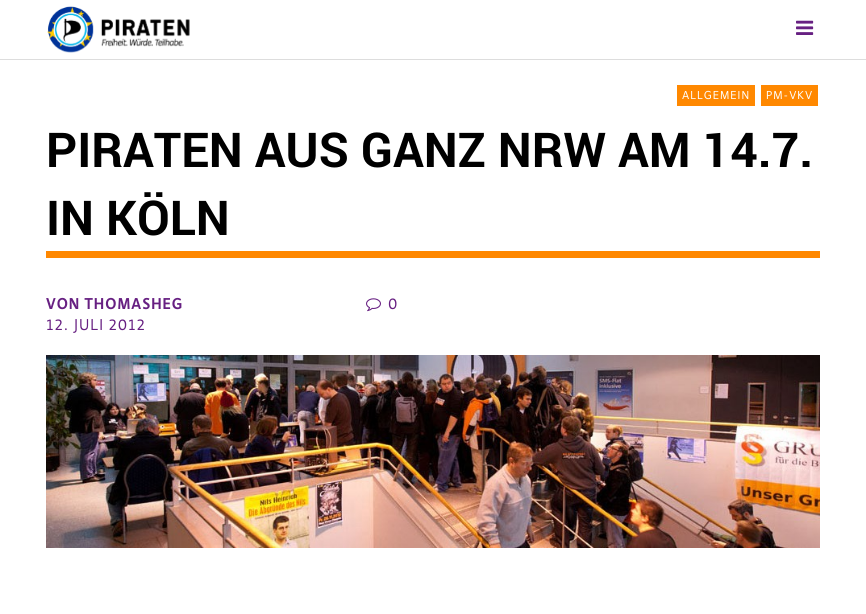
import math
import cairo

surface = cairo.ImageSurface(cairo.FORMAT_RGB24, 866, 614)
cr = cairo.Context(surface)
options = cairo.FontOptions()
options.set_hint_metrics(cairo.HINT_METRICS_OFF)
options.set_hint_style(cairo.HINT_STYLE_NONE)
cr.set_font_options(options)
cr.set_miter_limit(4)


def rgb(code):
    cr.set_source_rgb(*(v / 255 for v in bytes.fromhex(code[-6:])))


def tracked(x, y, s, letter, word):
    cr.move_to(x, y)
    for ch in s:
        cr.show_text(ch)
        cr.rel_move_to(letter + word * (ch == ' '), 0)


def image(path, x, y, w, h):
    cr.save()
    cr.set_source_surface(cairo.ImageSurface.create_from_png(path), x, y)
    cr.rectangle(x, y, w, h)
    cr.fill()
    cr.restore()


rgb("#ffffff")
cr.paint()
rgb("#dddddd")
cr.rectangle(0, 59, 866, 1)
cr.fill()
image("img/1.png", 47, 6, 143, 47)
image("img/2.png", 796, 20, 18, 15)
for x, y, w, h, color in [
    (677, 85, 78, 21, "#ff8800"),
    (761, 85, 57, 21, "#ff8800"),
    (46, 251, 774, 7, "#ff8800"),
]:
    rgb(color)
    cr.rectangle(x, y, w, h)
    cr.fill()
image("img/3.png", 366, 298, 15, 14)
image("img/4.png", 46, 355, 774, 193)
cr.select_font_face("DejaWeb")
cr.set_font_size(11)
rgb("#ffffff")
tracked(682, 99, "ALLGEMEIN", 1, 0)
tracked(766, 99, "PM-VKV", 1, 0)
cr.select_font_face("roboto", cairo.FONT_SLANT_NORMAL, cairo.FONT_WEIGHT_BOLD)
cr.set_font_size(48)
rgb("#000000")
cr.move_to(46, 167)
cr.show_text("PIRATEN AUS GANZ NRW AM 14.7.")
cr.move_to(46, 235)
cr.show_text("IN KÖLN")
cr.select_font_face("DejaWeb", cairo.FONT_SLANT_NORMAL, cairo.FONT_WEIGHT_BOLD)
cr.set_font_size(15)
rgb("#672082")
tracked(46, 309, "VON THOMASHEG", 1, 0)
cr.select_font_face("DejaWeb")
tracked(46, 330, "12. JULI 2012", 1, 0)
tracked(388, 309, "0", 1, 0)
surface.write_to_png("page.png")
